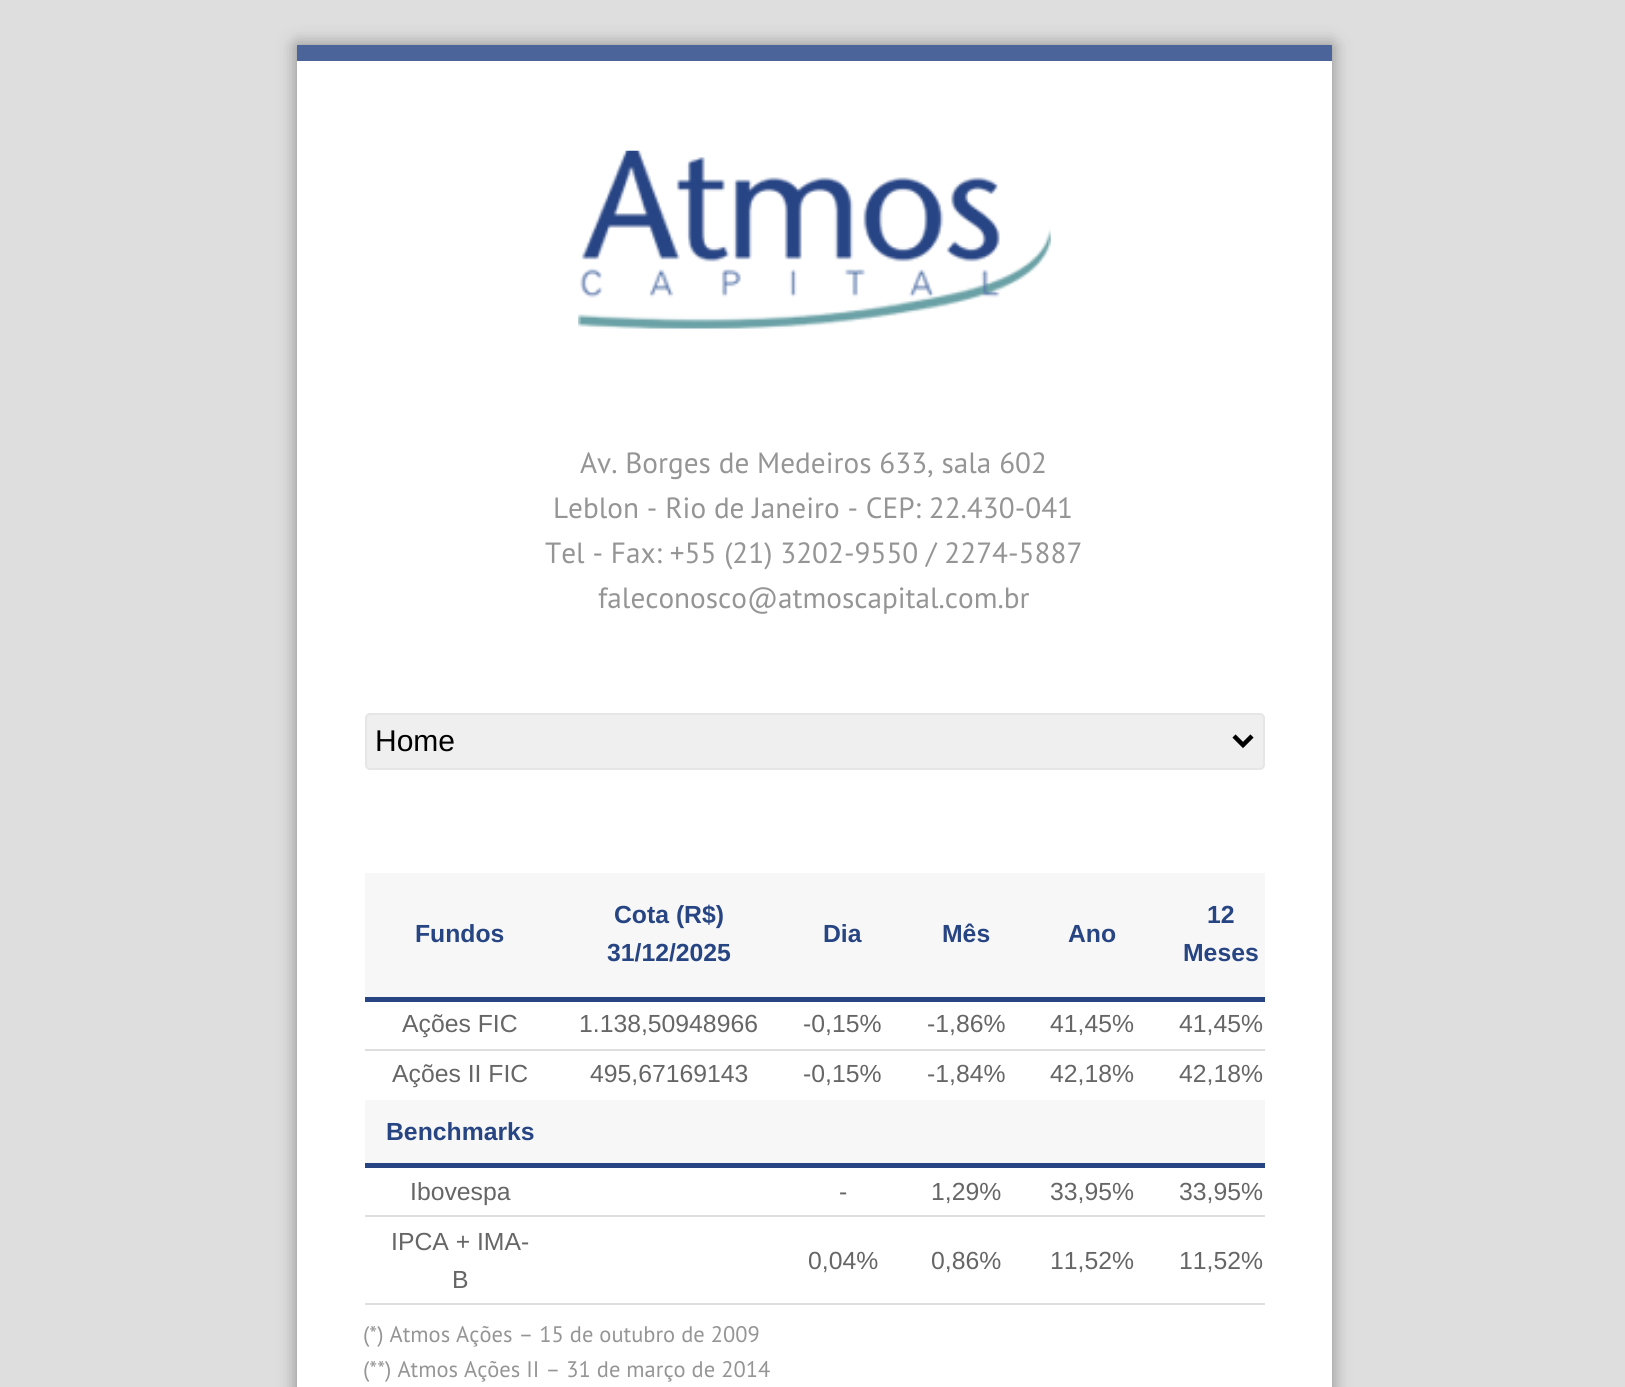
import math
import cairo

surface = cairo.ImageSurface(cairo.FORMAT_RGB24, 1625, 1387)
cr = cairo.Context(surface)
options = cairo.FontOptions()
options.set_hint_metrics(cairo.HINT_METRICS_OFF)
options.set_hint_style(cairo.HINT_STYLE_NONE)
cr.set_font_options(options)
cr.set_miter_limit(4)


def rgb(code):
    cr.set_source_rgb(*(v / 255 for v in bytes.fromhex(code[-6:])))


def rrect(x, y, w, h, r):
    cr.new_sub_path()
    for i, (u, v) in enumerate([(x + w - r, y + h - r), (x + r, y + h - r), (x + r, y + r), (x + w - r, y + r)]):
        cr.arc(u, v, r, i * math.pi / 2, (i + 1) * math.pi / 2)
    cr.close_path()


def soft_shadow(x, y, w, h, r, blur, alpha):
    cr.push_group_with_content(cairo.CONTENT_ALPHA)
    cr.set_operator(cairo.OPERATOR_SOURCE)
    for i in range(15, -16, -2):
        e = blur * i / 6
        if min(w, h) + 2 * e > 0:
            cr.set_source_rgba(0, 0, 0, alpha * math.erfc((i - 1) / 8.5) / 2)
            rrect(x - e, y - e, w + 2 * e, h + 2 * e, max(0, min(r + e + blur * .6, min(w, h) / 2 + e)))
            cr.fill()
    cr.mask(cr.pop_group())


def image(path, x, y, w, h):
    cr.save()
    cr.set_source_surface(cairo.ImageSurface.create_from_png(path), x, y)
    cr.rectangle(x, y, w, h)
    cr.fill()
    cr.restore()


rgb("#dedede")
cr.paint()
rgb("#000000")
soft_shadow(297, 45, 1035, 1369, 0, 9, 0.4)
rgb("#4b649a")
cr.rectangle(297, 45, 1035, 16)
cr.fill()
rgb("#ffffff")
cr.rectangle(297, 61, 1035, 1326)
cr.fill()
image("img/1.png", 578, 150, 473, 179)
rgb("#efefef")
rrect(366, 714, 898, 55, 4)
cr.fill_preserve()
rgb("#e6e6e6")
cr.stroke()
cr.new_path()
cr.move_to(1234, 736)
cr.line_to(1243, 745)
cr.line_to(1252, 736)
rgb("#000000")
cr.set_line_width(4.5)
cr.stroke()
for x, y, w, h, color in [
    (365, 873, 900, 124, "#f7f7f7"),
    (365, 997, 900, 5, "#274583"),
    (365, 1049, 900, 2, "#dedede"),
    (365, 1100, 900, 63, "#f7f7f7"),
    (365, 1163, 900, 5, "#274583"),
    (365, 1215, 900, 2, "#dedede"),
    (365, 1303, 900, 2, "#dedede"),
]:
    rgb(color)
    cr.rectangle(x, y, w, h)
    cr.fill()
cr.select_font_face("PT Sans")
cr.set_font_size(29.25)
rgb("#959595")
for x, y, s in [
    (580, 473, "Av. Borges de Medeiros 633, sala 602"),
    (553, 518, "Leblon - Rio de Janeiro - CEP: 22.430-041"),
    (545, 563, "Tel - Fax: +55 (21) 3202-9550 / 2274-5887"),
    (598, 608, "faleconosco@atmoscapital.com.br"),
]:
    cr.move_to(x, y)
    cr.show_text(s)
cr.select_font_face("Liberation Sans")
cr.set_font_size(30)
rgb("#000000")
cr.move_to(375, 751)
cr.show_text("Home")
cr.select_font_face("Liberation Sans", cairo.FONT_SLANT_NORMAL, cairo.FONT_WEIGHT_BOLD)
cr.set_font_size(24.75)
rgb("#274583")
for x, y, s in [
    (415, 942, "Fundos"),
    (614, 923, "Cota (R$)"),
    (607, 961, "31/12/2025"),
    (823, 942, "Dia"),
    (942, 942, "Mês"),
    (1068, 942, "Ano"),
    (1207, 923, "12"),
    (1183, 961, "Meses"),
]:
    cr.move_to(x, y)
    cr.show_text(s)
cr.select_font_face("Liberation Sans")
rgb("#666666")
for x, y, s in [
    (402, 1032, "Ações FIC"),
    (579, 1032, "1.138,50948966"),
    (803, 1032, "-0,15%"),
    (927, 1032, "-1,86%"),
    (1050, 1032, "41,45%"),
    (1179, 1032, "41,45%"),
    (392, 1082, "Ações II FIC"),
    (590, 1082, "495,67169143"),
    (803, 1082, "-0,15%"),
    (927, 1082, "-1,84%"),
    (1050, 1082, "42,18%"),
    (1179, 1082, "42,18%"),
]:
    cr.move_to(x, y)
    cr.show_text(s)
cr.select_font_face("Liberation Sans", cairo.FONT_SLANT_NORMAL, cairo.FONT_WEIGHT_BOLD)
rgb("#274583")
cr.move_to(386, 1140)
cr.show_text("Benchmarks")
cr.select_font_face("Liberation Sans")
rgb("#666666")
for x, y, s in [
    (410, 1200, "Ibovespa"),
    (839, 1200, "-"),
    (931, 1200, "1,29%"),
    (1050, 1200, "33,95%"),
    (1179, 1200, "33,95%"),
    (391, 1250, "IPCA + IMA-"),
    (452, 1288, "B"),
    (808, 1269, "0,04%"),
    (931, 1269, "0,86%"),
    (1050, 1269, "11,52%"),
    (1179, 1269, "11,52%"),
]:
    cr.move_to(x, y)
    cr.show_text(s)
cr.select_font_face("PT Sans")
cr.set_font_size(22.5)
rgb("#959595")
cr.move_to(363, 1342)
cr.show_text("(*) Atmos Ações – 15 de outubro de 2009")
cr.move_to(363, 1377)
cr.show_text("(**) Atmos Ações II – 31 de março de 2014")
surface.write_to_png("page.png")
